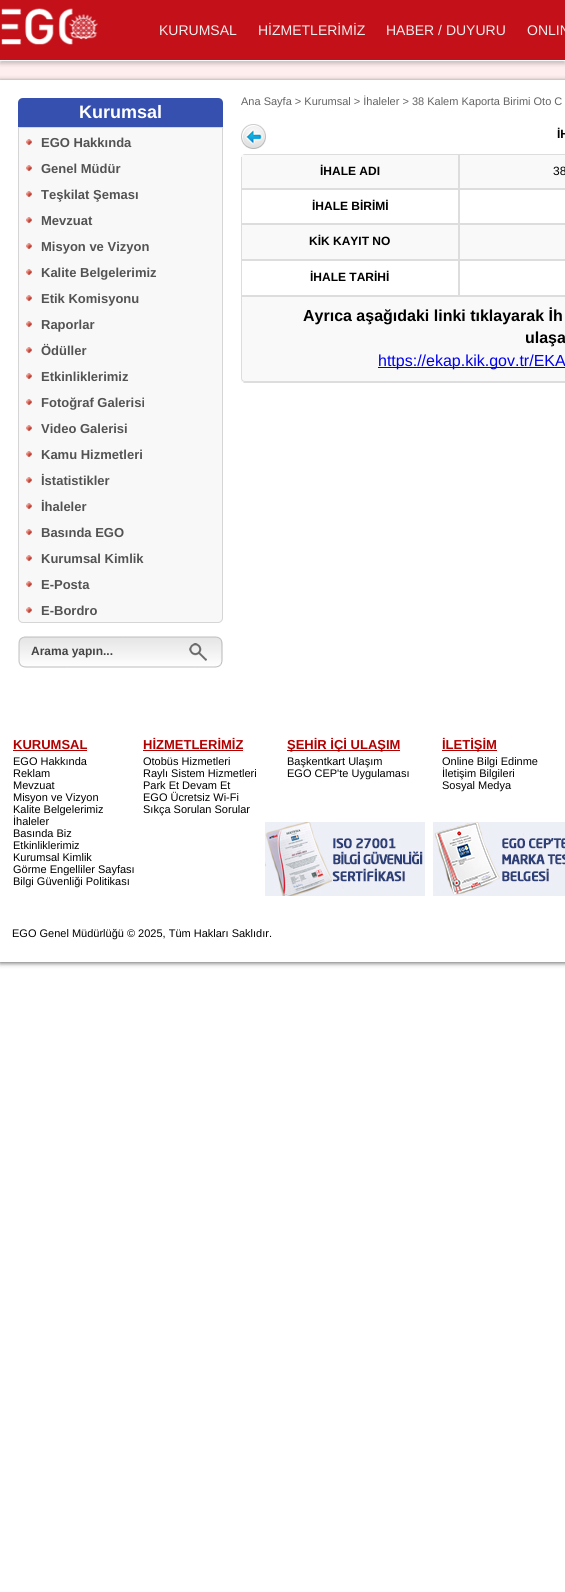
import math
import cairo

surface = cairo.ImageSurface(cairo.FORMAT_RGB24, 565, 1592)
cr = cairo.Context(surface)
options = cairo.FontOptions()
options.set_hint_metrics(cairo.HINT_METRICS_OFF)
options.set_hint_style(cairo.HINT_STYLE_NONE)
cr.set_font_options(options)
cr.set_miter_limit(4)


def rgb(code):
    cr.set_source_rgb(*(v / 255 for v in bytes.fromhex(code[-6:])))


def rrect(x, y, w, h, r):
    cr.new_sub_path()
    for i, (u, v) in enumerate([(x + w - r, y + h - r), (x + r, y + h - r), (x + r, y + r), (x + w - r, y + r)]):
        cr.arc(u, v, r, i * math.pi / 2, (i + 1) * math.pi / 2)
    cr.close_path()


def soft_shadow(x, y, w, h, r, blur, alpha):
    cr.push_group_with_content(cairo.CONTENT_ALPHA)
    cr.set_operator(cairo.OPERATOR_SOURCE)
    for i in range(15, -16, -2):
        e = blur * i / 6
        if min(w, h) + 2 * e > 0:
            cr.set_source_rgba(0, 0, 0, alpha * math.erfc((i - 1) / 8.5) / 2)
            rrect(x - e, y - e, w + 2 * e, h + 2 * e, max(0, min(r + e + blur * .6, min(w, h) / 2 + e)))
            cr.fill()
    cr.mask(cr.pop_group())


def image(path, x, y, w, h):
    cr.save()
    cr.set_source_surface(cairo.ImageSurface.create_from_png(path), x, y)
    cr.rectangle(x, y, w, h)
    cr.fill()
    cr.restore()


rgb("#ffffff")
cr.paint()
rgb("#ffeeee")
cr.rectangle(0, 61, 565, 19)
cr.fill()
rgb("#000000")
soft_shadow(0, 1, 565, 63, 0, 2, 0.2)
rgb("#c31019")
cr.rectangle(0, 0, 565, 60)
cr.fill()
image("img/1.png", 1, 8, 97, 37)
rgb("#ffffff")
cr.rectangle(0, 60, 565, 1)
cr.fill()
rgb("#323232")
soft_shadow(0, 81, 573, 882, 0, 2.5, 0.75)
rgb("#ffffff")
cr.rectangle(0, 80, 565, 882)
cr.fill()
rgb("#3650af")
cr.new_path()
cr.move_to(23, 98)
cr.line_to(218, 98)
cr.curve_to(221, 98, 223, 100, 223, 103)
cr.line_to(223, 127)
cr.line_to(18, 127)
cr.line_to(18, 103)
cr.curve_to(18, 100, 20, 98, 23, 98)
cr.close_path()
cr.fill()
rgb("#f8f8f8")
cr.new_path()
cr.move_to(18.5, 127.5)
cr.line_to(222.5, 127.5)
cr.line_to(222.5, 618)
cr.curve_to(222.5, 620.5, 220.5, 622.5, 218, 622.5)
cr.line_to(23, 622.5)
cr.curve_to(20.5, 622.5, 18.5, 620.5, 18.5, 618)
cr.close_path()
cr.fill_preserve()
rgb("#d5d5d5")
cr.set_line_width(1)
cr.stroke()
image("img/2.png", 26, 139, 6, 6)
image("img/2.png", 26, 165, 6, 6)
image("img/2.png", 26, 191, 6, 6)
image("img/2.png", 26, 217, 6, 6)
image("img/2.png", 26, 243, 6, 6)
image("img/2.png", 26, 269, 6, 6)
image("img/2.png", 26, 295, 6, 6)
image("img/2.png", 26, 321, 6, 6)
image("img/2.png", 26, 347, 6, 6)
image("img/2.png", 26, 373, 6, 6)
image("img/2.png", 26, 399, 6, 6)
image("img/2.png", 26, 425, 6, 6)
image("img/2.png", 26, 451, 6, 6)
image("img/2.png", 26, 477, 6, 6)
image("img/2.png", 26, 503, 6, 6)
image("img/2.png", 26, 529, 6, 6)
image("img/2.png", 26, 555, 6, 6)
image("img/2.png", 26, 581, 6, 6)
image("img/2.png", 26, 607, 6, 6)
image("img/3.png", 18, 636, 205, 32)
image("img/4.png", 241, 124, 25, 25)
rgb("#dddddd")
cr.set_fill_rule(cairo.FILL_RULE_EVEN_ODD)
cr.new_path()
cr.move_to(245, 154)
cr.line_to(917, 154)
cr.curve_to(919, 154, 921, 156, 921, 158)
cr.line_to(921, 379)
cr.curve_to(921, 381, 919, 383, 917, 383)
cr.line_to(245, 383)
cr.curve_to(243, 383, 241, 381, 241, 379)
cr.line_to(241, 158)
cr.curve_to(241, 156, 243, 154, 245, 154)
cr.close_path()
cr.move_to(245, 155)
cr.line_to(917, 155)
cr.curve_to(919, 155, 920, 156, 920, 158)
cr.line_to(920, 379)
cr.curve_to(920, 381, 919, 382, 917, 382)
cr.line_to(245, 382)
cr.curve_to(243, 382, 241, 381, 241, 379)
cr.line_to(241, 158)
cr.curve_to(241, 156, 243, 155, 245, 155)
cr.close_path()
cr.fill()
for x, y, w, h, color in [
    (241, 155, 324, 33, "#f9f9f9"),
    (458, 155, 1, 34, "#dddddd"),
    (241, 188, 324, 1, "#dddddd"),
    (241, 157, 1, 32, "#dddddd"),
    (459, 155, 1, 34, "#dddddd"),
]:
    rgb(color)
    cr.rectangle(x, y, w, h)
    cr.fill()
cr.rectangle(241.5, 189.5, 217, 34)
cr.stroke()
cr.rectangle(459.5, 189.5, 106, 34)
cr.stroke()
rgb("#f9f9f9")
cr.rectangle(242, 225, 323, 34)
cr.fill()
cr.rectangle(241.5, 224.5, 217, 35)
rgb("#dddddd")
cr.stroke()
cr.rectangle(459.5, 224.5, 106, 35)
cr.stroke()
cr.rectangle(241.5, 260.5, 217, 35)
cr.stroke()
cr.rectangle(459.5, 260.5, 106, 35)
cr.stroke()
rgb("#f9f9f9")
cr.rectangle(241, 297, 324, 85)
cr.fill()
cr.new_path()
cr.move_to(241.5, 296.5)
cr.line_to(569.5, 296.5)
cr.line_to(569.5, 378)
cr.curve_to(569.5, 380, 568, 381.5, 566, 381.5)
cr.line_to(245, 381.5)
cr.curve_to(243, 381.5, 241.5, 380, 241.5, 378)
cr.close_path()
rgb("#dddddd")
cr.stroke()
for x, y, w, h, color in [
    (378, 367, 187, 1, "#0000ee"),
    (13, 750, 74, 1, "#b20000"),
    (143, 750, 100, 1, "#b20000"),
    (287, 750, 113, 1, "#b20000"),
    (442, 750, 55, 1, "#b20000"),
]:
    rgb(color)
    cr.rectangle(x, y, w, h)
    cr.fill()
image("img/5.png", 265, 822, 160, 74)
image("img/6.png", 433, 822, 132, 74)
cr.select_font_face("Liberation Sans")
cr.set_font_size(14)
rgb("#eeeeee")
for x, y, s in [
    (159, 35, "KURUMSAL"),
    (258, 35, "HİZMETLERİMİZ"),
    (386, 35, "HABER / DUYURU"),
    (527, 35, "ONLIN"),
]:
    cr.move_to(x, y)
    cr.show_text(s)
cr.select_font_face("Liberation Sans", cairo.FONT_SLANT_NORMAL, cairo.FONT_WEIGHT_BOLD)
cr.set_font_size(18)
rgb("#ffffff")
cr.move_to(79, 118)
cr.show_text("Kurumsal")
cr.set_font_size(13)
rgb("#535353")
for x, y, s in [
    (41, 147, "EGO Hakkında"),
    (41, 173, "Genel Müdür"),
    (41, 199, "Teşkilat Şeması"),
    (41, 225, "Mevzuat"),
    (41, 251, "Misyon ve Vizyon"),
    (41, 277, "Kalite Belgelerimiz"),
    (41, 303, "Etik Komisyonu"),
    (41, 329, "Raporlar"),
    (41, 355, "Ödüller"),
    (41, 381, "Etkinliklerimiz"),
    (41, 407, "Fotoğraf Galerisi"),
    (41, 433, "Video Galerisi"),
    (41, 459, "Kamu Hizmetleri"),
    (41, 485, "İstatistikler"),
    (41, 511, "İhaleler"),
    (41, 537, "Basında EGO"),
    (41, 563, "Kurumsal Kimlik"),
    (41, 589, "E-Posta"),
    (41, 615, "E-Bordro"),
]:
    cr.move_to(x, y)
    cr.show_text(s)
cr.set_font_size(12)
rgb("#444444")
cr.move_to(31, 655)
cr.show_text("Arama yapın...")
cr.select_font_face("Liberation Sans")
cr.set_font_size(11)
rgb("#636363")
cr.move_to(241, 105)
cr.show_text("Ana Sayfa > Kurumsal > İhaleler > 38 Kalem Kaporta Birimi Oto C")
cr.select_font_face("Liberation Sans", cairo.FONT_SLANT_NORMAL, cairo.FONT_WEIGHT_BOLD)
cr.set_font_size(12)
rgb("#000000")
cr.move_to(557, 138)
cr.show_text("İH")
cr.move_to(320, 175)
cr.show_text("İHALE ADI")
cr.select_font_face("Liberation Sans")
cr.move_to(553, 175)
cr.show_text("38")
cr.select_font_face("Liberation Sans", cairo.FONT_SLANT_NORMAL, cairo.FONT_WEIGHT_BOLD)
for x, y, s in [
    (312, 210, "İHALE BİRİMİ"),
    (309, 245, "KİK KAYIT NO"),
    (310, 281, "İHALE TARİHİ"),
]:
    cr.move_to(x, y)
    cr.show_text(s)
cr.set_font_size(16)
cr.move_to(303, 321)
cr.show_text("Ayrıca aşağıdaki linki tıklayarak İh")
cr.move_to(525, 343)
cr.show_text("ulaşa")
cr.select_font_face("Liberation Sans")
rgb("#0000ee")
cr.move_to(378, 366)
cr.show_text("https://ekap.kik.gov.tr/EKA")
cr.select_font_face("Liberation Sans", cairo.FONT_SLANT_NORMAL, cairo.FONT_WEIGHT_BOLD)
cr.set_font_size(13)
rgb("#b20000")
cr.move_to(13, 749)
cr.show_text("KURUMSAL")
cr.select_font_face("Liberation Sans")
cr.set_font_size(11)
rgb("#000000")
for x, y, s in [
    (13, 765, "EGO Hakkında"),
    (13, 777, "Reklam"),
    (13, 789, "Mevzuat"),
    (13, 801, "Misyon ve Vizyon"),
    (13, 813, "Kalite Belgelerimiz"),
    (13, 825, "İhaleler"),
    (13, 837, "Basında Biz"),
    (13, 849, "Etkinliklerimiz"),
    (13, 861, "Kurumsal Kimlik"),
    (13, 873, "Görme Engelliler Sayfası"),
    (13, 885, "Bilgi Güvenliği Politikası"),
]:
    cr.move_to(x, y)
    cr.show_text(s)
cr.select_font_face("Liberation Sans", cairo.FONT_SLANT_NORMAL, cairo.FONT_WEIGHT_BOLD)
cr.set_font_size(13)
rgb("#b20000")
cr.move_to(143, 749)
cr.show_text("HİZMETLERİMİZ")
cr.select_font_face("Liberation Sans")
cr.set_font_size(11)
rgb("#000000")
for x, y, s in [
    (143, 765, "Otobüs Hizmetleri"),
    (143, 777, "Raylı Sistem Hizmetleri"),
    (143, 789, "Park Et Devam Et"),
    (143, 801, "EGO Ücretsiz Wi-Fi"),
    (143, 813, "Sıkça Sorulan Sorular"),
]:
    cr.move_to(x, y)
    cr.show_text(s)
cr.select_font_face("Liberation Sans", cairo.FONT_SLANT_NORMAL, cairo.FONT_WEIGHT_BOLD)
cr.set_font_size(13)
rgb("#b20000")
cr.move_to(287, 749)
cr.show_text("ŞEHİR İÇİ ULAŞIM")
cr.select_font_face("Liberation Sans")
cr.set_font_size(11)
rgb("#000000")
cr.move_to(287, 765)
cr.show_text("Başkentkart Ulaşım")
cr.move_to(287, 777)
cr.show_text("EGO CEP'te Uygulaması")
cr.select_font_face("Liberation Sans", cairo.FONT_SLANT_NORMAL, cairo.FONT_WEIGHT_BOLD)
cr.set_font_size(13)
rgb("#b20000")
cr.move_to(442, 749)
cr.show_text("İLETİŞİM")
cr.select_font_face("Liberation Sans")
cr.set_font_size(11)
rgb("#000000")
for x, y, s in [
    (442, 765, "Online Bilgi Edinme"),
    (442, 777, "İletişim Bilgileri"),
    (442, 789, "Sosyal Medya"),
    (12, 937, "EGO Genel Müdürlüğü © 2025, Tüm Hakları Saklıdır."),
]:
    cr.move_to(x, y)
    cr.show_text(s)
surface.write_to_png("page.png")
